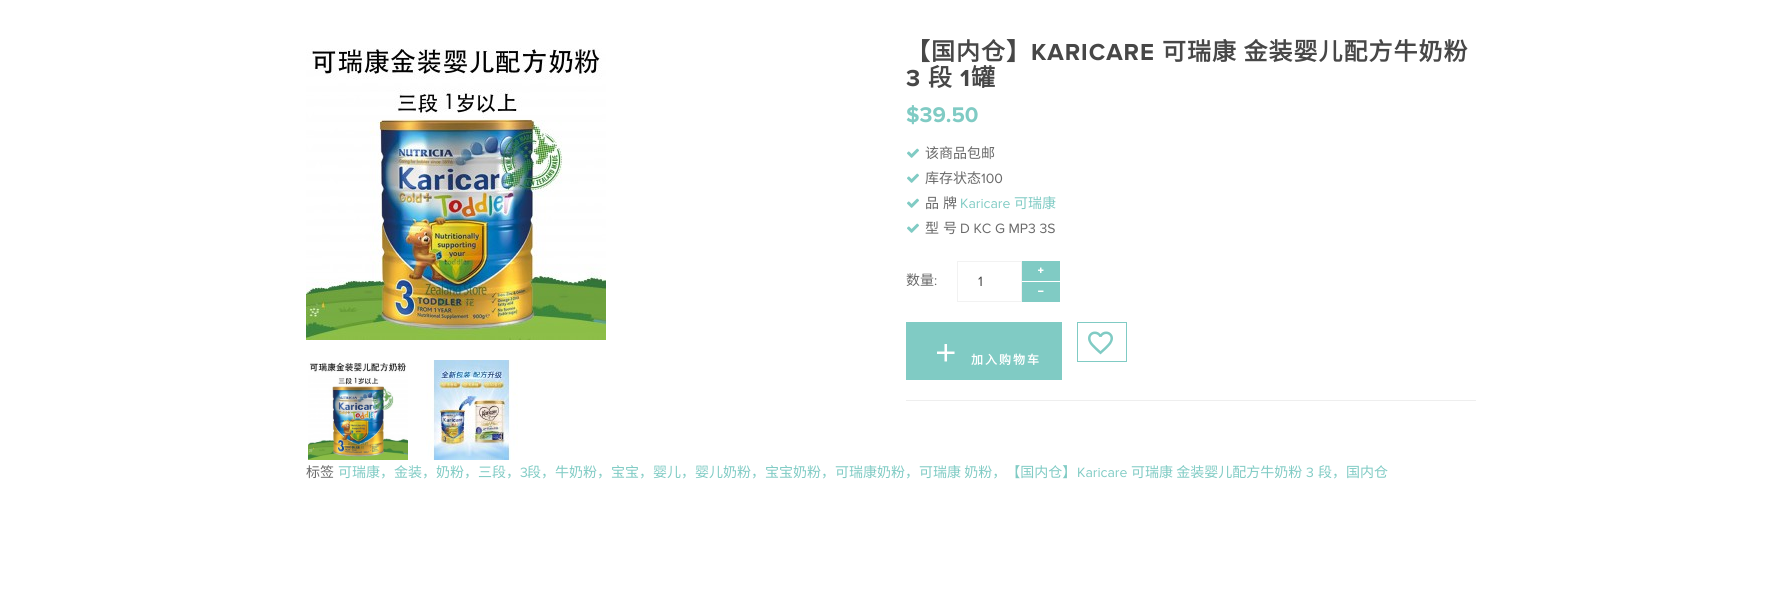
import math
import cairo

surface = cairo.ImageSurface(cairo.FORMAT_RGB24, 1782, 616)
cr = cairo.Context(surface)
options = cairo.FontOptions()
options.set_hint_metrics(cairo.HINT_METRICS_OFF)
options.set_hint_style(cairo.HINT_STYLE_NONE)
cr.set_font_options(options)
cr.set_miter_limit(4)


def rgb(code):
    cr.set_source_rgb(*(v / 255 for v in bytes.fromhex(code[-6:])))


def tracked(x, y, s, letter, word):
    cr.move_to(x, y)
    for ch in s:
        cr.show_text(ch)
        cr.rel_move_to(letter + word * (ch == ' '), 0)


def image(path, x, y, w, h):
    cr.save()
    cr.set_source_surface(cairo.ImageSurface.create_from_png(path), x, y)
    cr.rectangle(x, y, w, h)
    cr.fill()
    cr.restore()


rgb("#ffffff")
cr.paint()
image("img/1.png", 306, 48, 300, 292)
image("img/2.png", 308, 362, 100, 98)
image("img/3.png", 426, 360, 92, 100)
image("img/4.png", 907, 148, 12, 10)
image("img/4.png", 907, 173, 12, 10)
image("img/4.png", 907, 198, 12, 10)
image("img/4.png", 907, 223, 12, 10)
cr.rectangle(957.5, 261.5, 64, 40)
rgb("#f2f2f2")
cr.set_line_width(1)
cr.stroke()
rgb("#80cbc4")
cr.rectangle(1022, 261, 38, 20)
cr.fill()
image("img/5.png", 1038, 267, 6, 6)
cr.rectangle(1022, 282, 38, 20)
cr.fill()
image("img/6.png", 1038, 290, 6, 2)
cr.rectangle(906, 322, 156, 58)
cr.fill()
image("img/7.png", 937, 344, 18, 18)
cr.rectangle(1077.5, 322.5, 49, 39)
cr.stroke()
image("img/8.png", 1088, 331, 25, 24)
rgb("#eeeeee")
cr.rectangle(906, 400, 570, 1)
cr.fill()
cr.select_font_face("Noto Sans CJK SC", cairo.FONT_SLANT_NORMAL, cairo.FONT_WEIGHT_BOLD)
cr.set_font_size(24)
rgb("#474747")
tracked(906, 60, "【国内仓】", 1, 0)
cr.select_font_face("Proxima Nova", cairo.FONT_SLANT_NORMAL, cairo.FONT_WEIGHT_BOLD)
tracked(1031, 60, "KARICARE", 1, 0)
cr.select_font_face("Noto Sans CJK SC", cairo.FONT_SLANT_NORMAL, cairo.FONT_WEIGHT_BOLD)
tracked(1162, 60, "可瑞康 金装婴儿配方牛奶粉", 1, 0)
cr.select_font_face("Proxima Nova", cairo.FONT_SLANT_NORMAL, cairo.FONT_WEIGHT_BOLD)
tracked(906, 86, "3", 1, 0)
cr.select_font_face("Noto Sans CJK SC", cairo.FONT_SLANT_NORMAL, cairo.FONT_WEIGHT_BOLD)
tracked(928, 86, "段", 1, 0)
cr.select_font_face("Proxima Nova", cairo.FONT_SLANT_NORMAL, cairo.FONT_WEIGHT_BOLD)
tracked(960, 86, "1", 1, 0)
cr.select_font_face("Noto Sans CJK SC", cairo.FONT_SLANT_NORMAL, cairo.FONT_WEIGHT_BOLD)
tracked(971, 86, "罐", 1, 0)
cr.select_font_face("Proxima Nova", cairo.FONT_SLANT_NORMAL, cairo.FONT_WEIGHT_BOLD)
cr.set_font_size(22)
rgb("#80cbc4")
cr.move_to(906, 122)
cr.show_text("$39.50")
cr.select_font_face("Noto Sans CJK SC")
cr.set_font_size(14)
rgb("#696969")
cr.move_to(925, 158)
cr.show_text("该商品包邮")
cr.move_to(925, 183)
cr.show_text("库存状态")
cr.select_font_face("Proxima Nova")
cr.move_to(981, 183)
cr.show_text("100")
cr.select_font_face("Noto Sans CJK SC")
cr.move_to(925, 208)
cr.show_text("品")
cr.move_to(943, 208)
cr.show_text("牌")
cr.select_font_face("Proxima Nova")
rgb("#80cbc4")
cr.move_to(960, 208)
cr.show_text("Karicare")
cr.select_font_face("Noto Sans CJK SC")
cr.move_to(1014, 208)
cr.show_text("可瑞康")
rgb("#696969")
cr.move_to(925, 233)
cr.show_text("型")
cr.move_to(943, 233)
cr.show_text("号")
cr.select_font_face("Proxima Nova")
cr.move_to(960, 233)
cr.show_text("D KC G MP3 3S")
cr.select_font_face("Noto Sans CJK SC")
cr.move_to(906, 285)
cr.show_text("数量")
cr.select_font_face("Proxima Nova")
cr.move_to(934, 285)
cr.show_text(":")
rgb("#474747")
cr.move_to(978, 286)
cr.show_text("1")
cr.select_font_face("Noto Sans CJK SC", cairo.FONT_SLANT_NORMAL, cairo.FONT_WEIGHT_BOLD)
cr.set_font_size(12)
rgb("#ffffff")
tracked(971, 364, "加入购物车", 2, 0)
cr.select_font_face("Noto Sans CJK SC")
cr.set_font_size(14)
rgb("#696969")
cr.move_to(306, 477)
cr.show_text("标签")
rgb("#80cbc4")
cr.move_to(338, 477)
cr.show_text("可瑞康，金装，奶粉，三段，")
cr.select_font_face("Proxima Nova")
cr.move_to(520, 477)
cr.show_text("3")
cr.select_font_face("Noto Sans CJK SC")
cr.move_to(527, 477)
cr.show_text("段，牛奶粉，宝宝，婴儿，婴儿奶粉，宝宝奶粉，可瑞康奶粉，可瑞康 奶粉，【国内仓】")
cr.select_font_face("Proxima Nova")
cr.move_to(1077, 477)
cr.show_text("Karicare")
cr.select_font_face("Noto Sans CJK SC")
cr.move_to(1131, 477)
cr.show_text("可瑞康 金装婴儿配方牛奶粉")
cr.select_font_face("Proxima Nova")
cr.move_to(1306, 477)
cr.show_text("3")
cr.select_font_face("Noto Sans CJK SC")
cr.move_to(1318, 477)
cr.show_text("段，国内仓")
surface.write_to_png("page.png")
